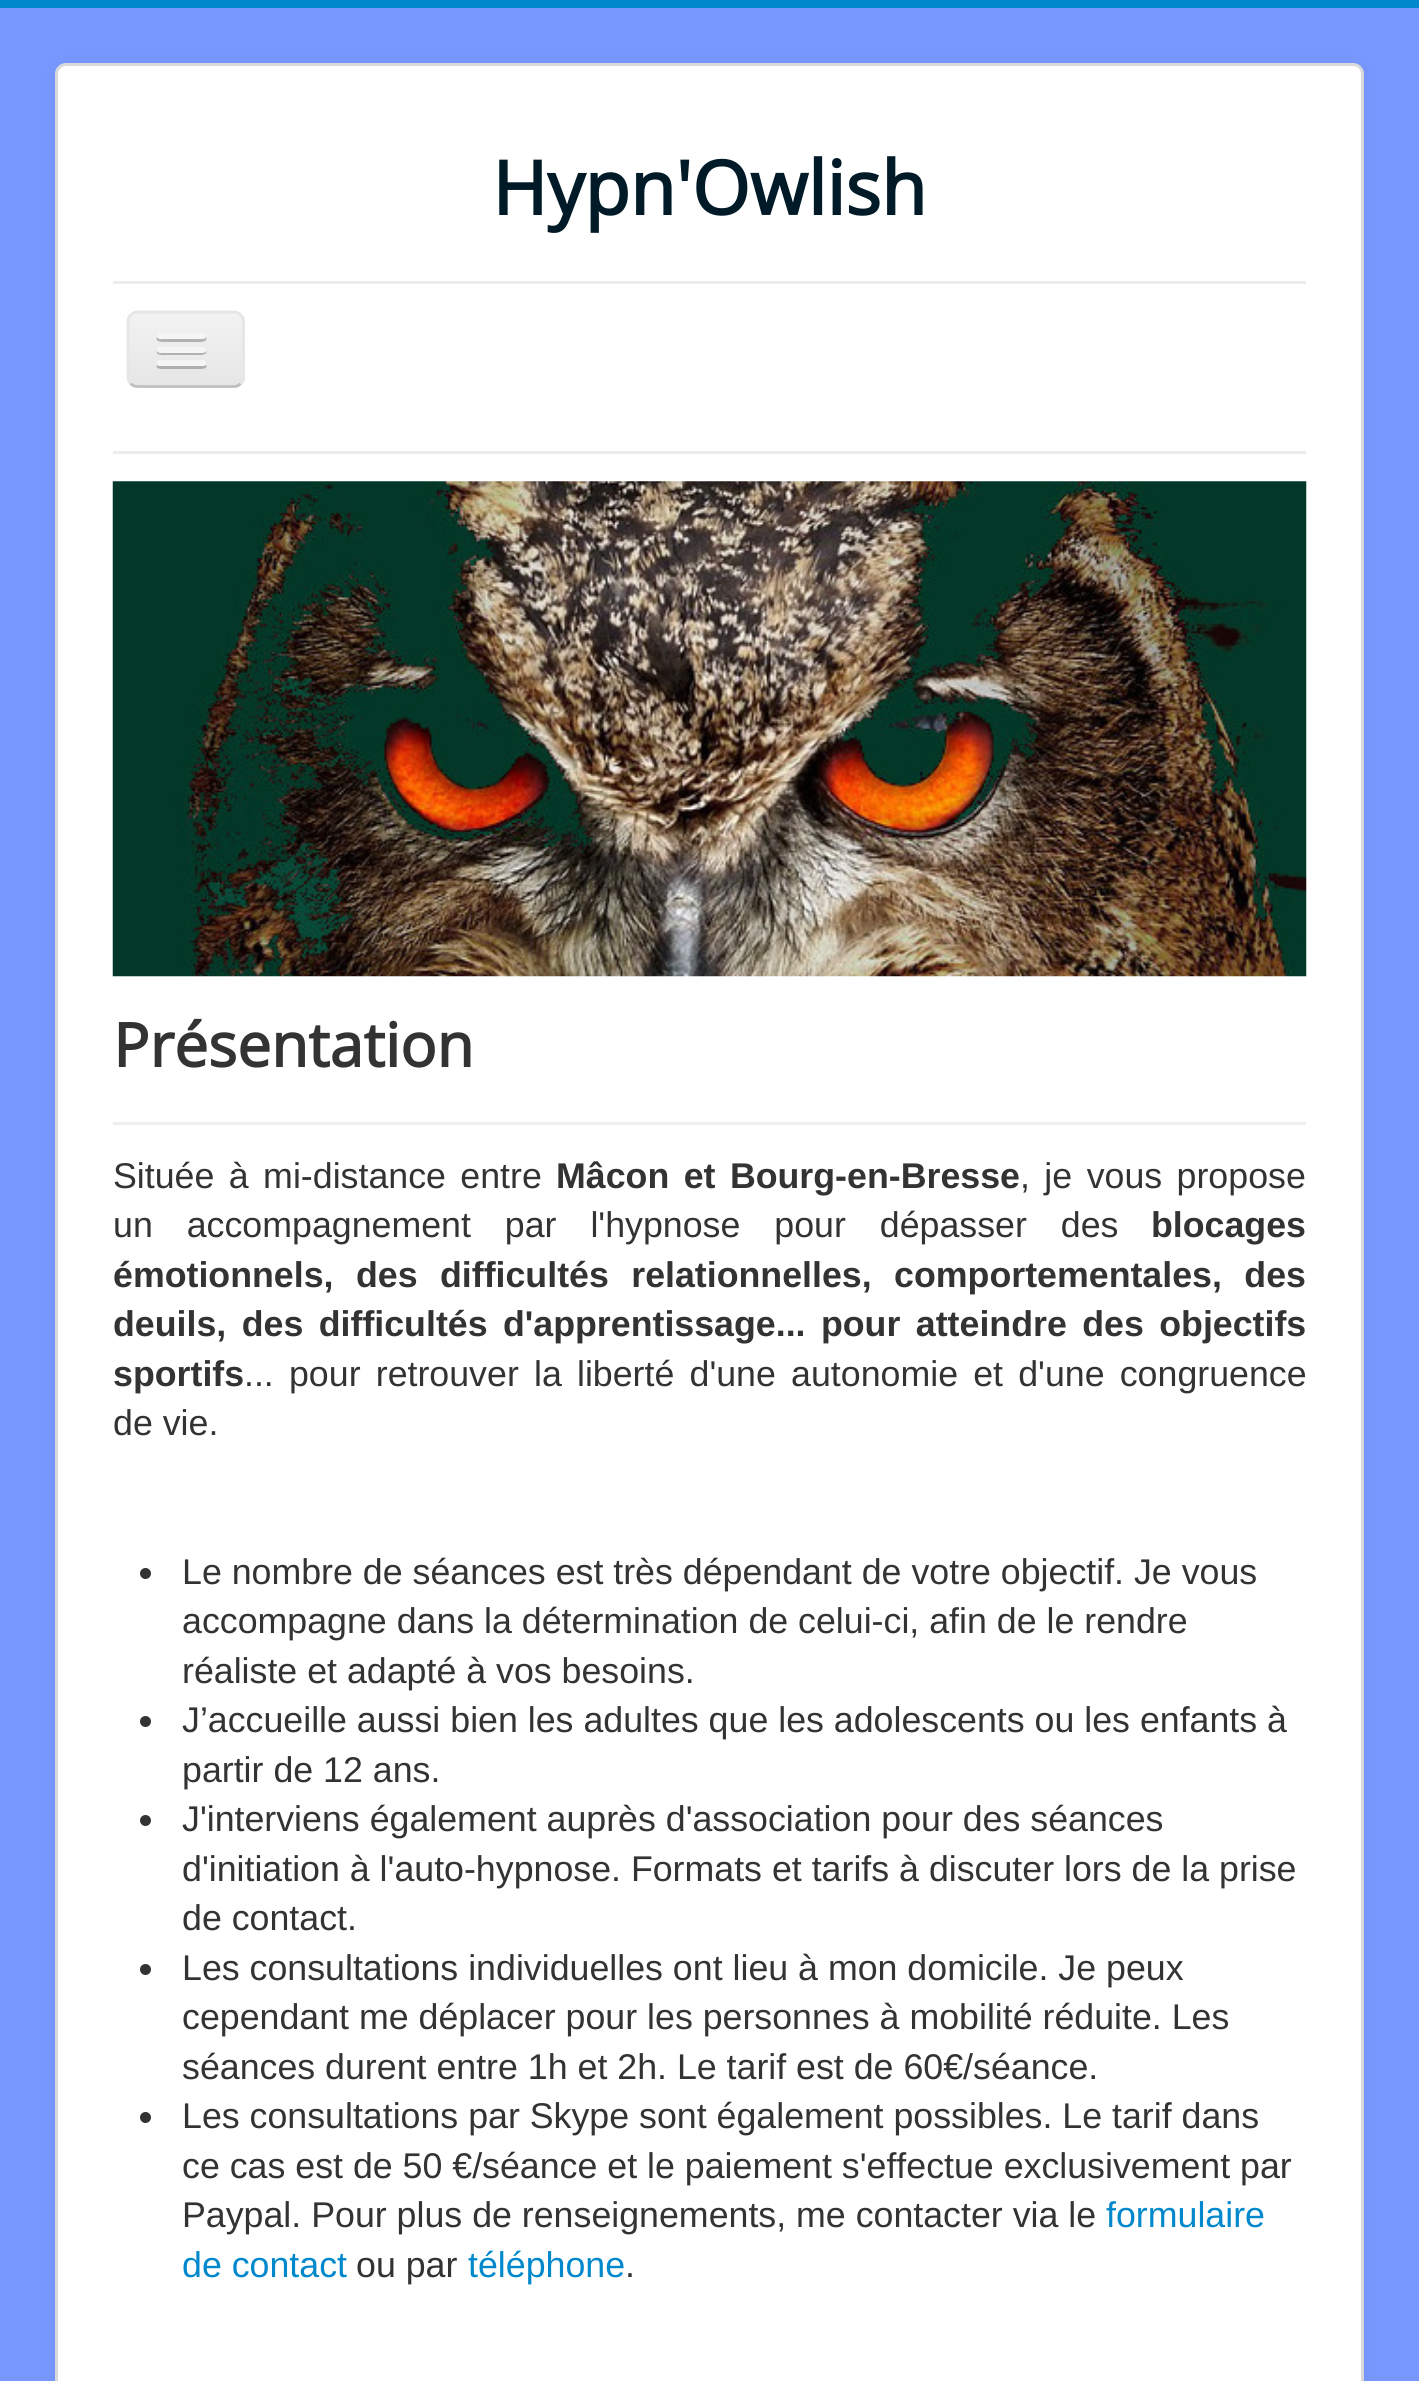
import math
import cairo

surface = cairo.ImageSurface(cairo.FORMAT_RGB24, 1419, 2381)
cr = cairo.Context(surface)
options = cairo.FontOptions()
options.set_hint_metrics(cairo.HINT_METRICS_OFF)
options.set_hint_style(cairo.HINT_STYLE_NONE)
cr.set_font_options(options)
cr.set_miter_limit(4)


def rgb(code):
    cr.set_source_rgb(*(v / 255 for v in bytes.fromhex(code[-6:])))


def tracked(x, y, s, letter, word):
    cr.move_to(x, y)
    for ch in s:
        cr.show_text(ch)
        cr.rel_move_to(letter + word * (ch == ' '), 0)


def rrect(x, y, w, h, r):
    cr.new_sub_path()
    for i, (u, v) in enumerate([(x + w - r, y + h - r), (x + r, y + h - r), (x + r, y + r), (x + w - r, y + r)]):
        cr.arc(u, v, r, i * math.pi / 2, (i + 1) * math.pi / 2)
    cr.close_path()


def soft_shadow(x, y, w, h, r, blur, alpha):
    cr.push_group_with_content(cairo.CONTENT_ALPHA)
    cr.set_operator(cairo.OPERATOR_SOURCE)
    for i in range(15, -16, -2):
        e = blur * i / 6
        if min(w, h) + 2 * e > 0:
            cr.set_source_rgba(0, 0, 0, alpha * math.erfc((i - 1) / 8.5) / 2)
            rrect(x - e, y - e, w + 2 * e, h + 2 * e, max(0, min(r + e + blur * .6, min(w, h) / 2 + e)))
            cr.fill()
    cr.mask(cr.pop_group())


def image(path, x, y, w, h):
    cr.save()
    cr.set_source_surface(cairo.ImageSurface.create_from_png(path), x, y)
    cr.rectangle(x, y, w, h)
    cr.fill()
    cr.restore()


rgb("#7898ff")
cr.paint()
rgb("#0088cc")
cr.rectangle(0, 0, 1419, 8)
cr.fill()
rgb("#000000")
soft_shadow(55, 63, 1309, 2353, 11, 8, 0.05)
rgb("#ffffff")
rrect(55, 63, 1309, 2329, 11)
cr.fill()
rrect(56.5, 64.5, 1306, 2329, 9.5)
cr.set_source_rgba(0, 0, 0, 0.15)
cr.set_line_width(3)
cr.stroke()
rgb("#ececec")
cr.rectangle(113, 281, 1193, 3)
cr.fill()
cr.rectangle(113, 451, 1193, 3)
cr.fill()
rgb("#ededed")
rrect(127, 311, 118, 77, 11)
cr.fill()
cr.save()
rrect(127, 311, 118, 77, 11)
cr.clip()
gradient = cairo.LinearGradient(186, 314, 186, 385)
gradient.add_color_stop_rgba(0, 0.949, 0.949, 0.949, 1)
gradient.add_color_stop_rgba(1, 0.902, 0.902, 0.902, 1)
cr.set_source(gradient)
cr.rectangle(127, 314, 118, 71)
cr.fill()
cr.restore()
cr.new_path()
cr.move_to(240.5, 383.5)
cr.curve_to(239, 385.5, 236.5, 386.5, 234, 386.5)
cr.line_to(137.5, 386.5)
cr.curve_to(135, 386.5, 132.5, 385.5, 130.5, 383.5)
rgb("#bfbfbf")
cr.set_line_width(2.8)
cr.stroke()
cr.new_path()
cr.move_to(130.5, 383.5)
cr.curve_to(129, 382, 128, 379.5, 128, 377)
cr.line_to(128, 322)
cr.curve_to(128, 319, 129, 316.5, 130.5, 315)
cr.curve_to(132.5, 313, 135, 312, 137.5, 312)
cr.line_to(234, 312)
cr.curve_to(236.5, 312, 239, 313, 240.5, 315)
cr.curve_to(242.5, 316.5, 243.5, 319, 243.5, 322)
cr.line_to(243.5, 377)
cr.curve_to(243.5, 379.5, 242.5, 382, 240.5, 383.5)
rgb("#e6e6e6")
cr.stroke()
rgb("#b2b2b2")
cr.new_path()
cr.move_to(157, 337)
cr.curve_to(154, 343, 166, 342, 167, 342)
cr.line_to(196, 342)
cr.curve_to(197, 342, 209, 343, 206, 337)
cr.line_to(204, 338)
cr.line_to(159, 338)
cr.close_path()
cr.fill()
rgb("#f5f5f5")
rrect(157, 333, 49, 6, 3)
cr.fill()
rgb("#b0b0b0")
cr.new_path()
cr.move_to(157, 351)
cr.curve_to(155, 356, 166, 355, 167, 355)
cr.line_to(196, 355)
cr.curve_to(197, 355, 208, 356, 206, 351)
cr.line_to(204, 352)
cr.line_to(159, 352)
cr.close_path()
cr.fill()
rgb("#f5f5f5")
rrect(157, 347, 49, 6, 3)
cr.fill()
rgb("#afafaf")
cr.new_path()
cr.move_to(157, 365)
cr.curve_to(154, 370, 166, 369, 167, 369)
cr.line_to(196, 369)
cr.curve_to(197, 369, 209, 370, 206, 365)
cr.line_to(204, 366)
cr.line_to(159, 366)
cr.close_path()
cr.fill()
rgb("#f5f5f5")
rrect(157, 360, 49, 6, 3)
cr.fill()
image("img/1.png", 112, 481, 1195, 496)
rgb("#eeeeee")
cr.rectangle(113, 1122, 1193, 3)
cr.fill()
rgb("#333333")
cr.arc(145.5, 1573.5, 5.5, 0, 2 * math.pi)
cr.fill()
cr.arc(145.5, 1721.5, 5.5, 0, 2 * math.pi)
cr.fill()
cr.arc(145.5, 1820.5, 5.5, 0, 2 * math.pi)
cr.fill()
cr.arc(145.5, 1969.5, 5.5, 0, 2 * math.pi)
cr.fill()
cr.arc(145.5, 2117.5, 5.5, 0, 2 * math.pi)
cr.fill()
cr.select_font_face("Open Sans", cairo.FONT_SLANT_NORMAL, cairo.FONT_WEIGHT_BOLD)
cr.set_font_size(74.5)
rgb("#001a27")
cr.move_to(492, 215)
cr.show_text("Hypn'Owlish")
cr.set_font_size(60.5)
rgb("#333333")
cr.move_to(113, 1067)
cr.show_text("Présentation")
cr.select_font_face("Liberation Sans")
cr.set_font_size(35.75)
tracked(113, 1188, "Située à mi-distance entre", 0, 4.5)
cr.select_font_face("Liberation Sans", cairo.FONT_SLANT_NORMAL, cairo.FONT_WEIGHT_BOLD)
tracked(556, 1188, "Mâcon et Bourg-en-Bresse", 0, 4.5)
cr.select_font_face("Liberation Sans")
tracked(1020, 1188, ", je vous propose", 0, 4.5)
tracked(113, 1237, "un accompagnement par l'hypnose pour dépasser des", 0, 24)
cr.select_font_face("Liberation Sans", cairo.FONT_SLANT_NORMAL, cairo.FONT_WEIGHT_BOLD)
cr.move_to(1151, 1237)
cr.show_text("blocages")
tracked(113, 1287, "émotionnels, des difficultés relationnelles, comportementales, des", 0, 12.5)
tracked(113, 1336, "deuils, des difficultés d'apprentissage... pour atteindre des objectifs", 0, 5.5)
cr.move_to(113, 1386)
cr.show_text("sportifs")
cr.select_font_face("Liberation Sans")
tracked(244, 1386, "... pour retrouver la liberté d'une autonomie et d'une congruence", 0, 5.25)
for x, y, s in [
    (113, 1435, "de vie."),
    (182, 1584, "Le nombre de séances est très dépendant de votre objectif. Je vous"),
    (182, 1633, "accompagne dans la détermination de celui-ci, afin de le rendre"),
    (182, 1683, "réaliste et adapté à vos besoins."),
    (182, 1732, "J’accueille aussi bien les adultes que les adolescents ou les enfants à"),
    (182, 1782, "partir de 12 ans."),
    (182, 1831, "J'interviens également auprès d'association pour des séances"),
    (182, 1881, "d'initiation à l'auto-hypnose. Formats et tarifs à discuter lors de la prise"),
    (182, 1930, "de contact."),
    (182, 1980, "Les consultations individuelles ont lieu à mon domicile. Je peux"),
    (182, 2029, "cependant me déplacer pour les personnes à mobilité réduite. Les"),
    (182, 2079, "séances durent entre 1h et 2h. Le tarif est de 60€/séance."),
    (182, 2128, "Les consultations par Skype sont également possibles. Le tarif dans"),
    (182, 2178, "ce cas est de 50 €/séance et le paiement s'effectue exclusivement par"),
    (182, 2227, "Paypal. Pour plus de renseignements, me contacter via le"),
]:
    cr.move_to(x, y)
    cr.show_text(s)
rgb("#0088cc")
cr.move_to(1106, 2227)
cr.show_text("formulaire")
cr.move_to(182, 2277)
cr.show_text("de contact")
rgb("#333333")
cr.move_to(356, 2277)
cr.show_text("ou par")
rgb("#0088cc")
cr.move_to(468, 2277)
cr.show_text("téléphone")
rgb("#333333")
cr.move_to(625, 2277)
cr.show_text(".")
surface.write_to_png("page.png")
